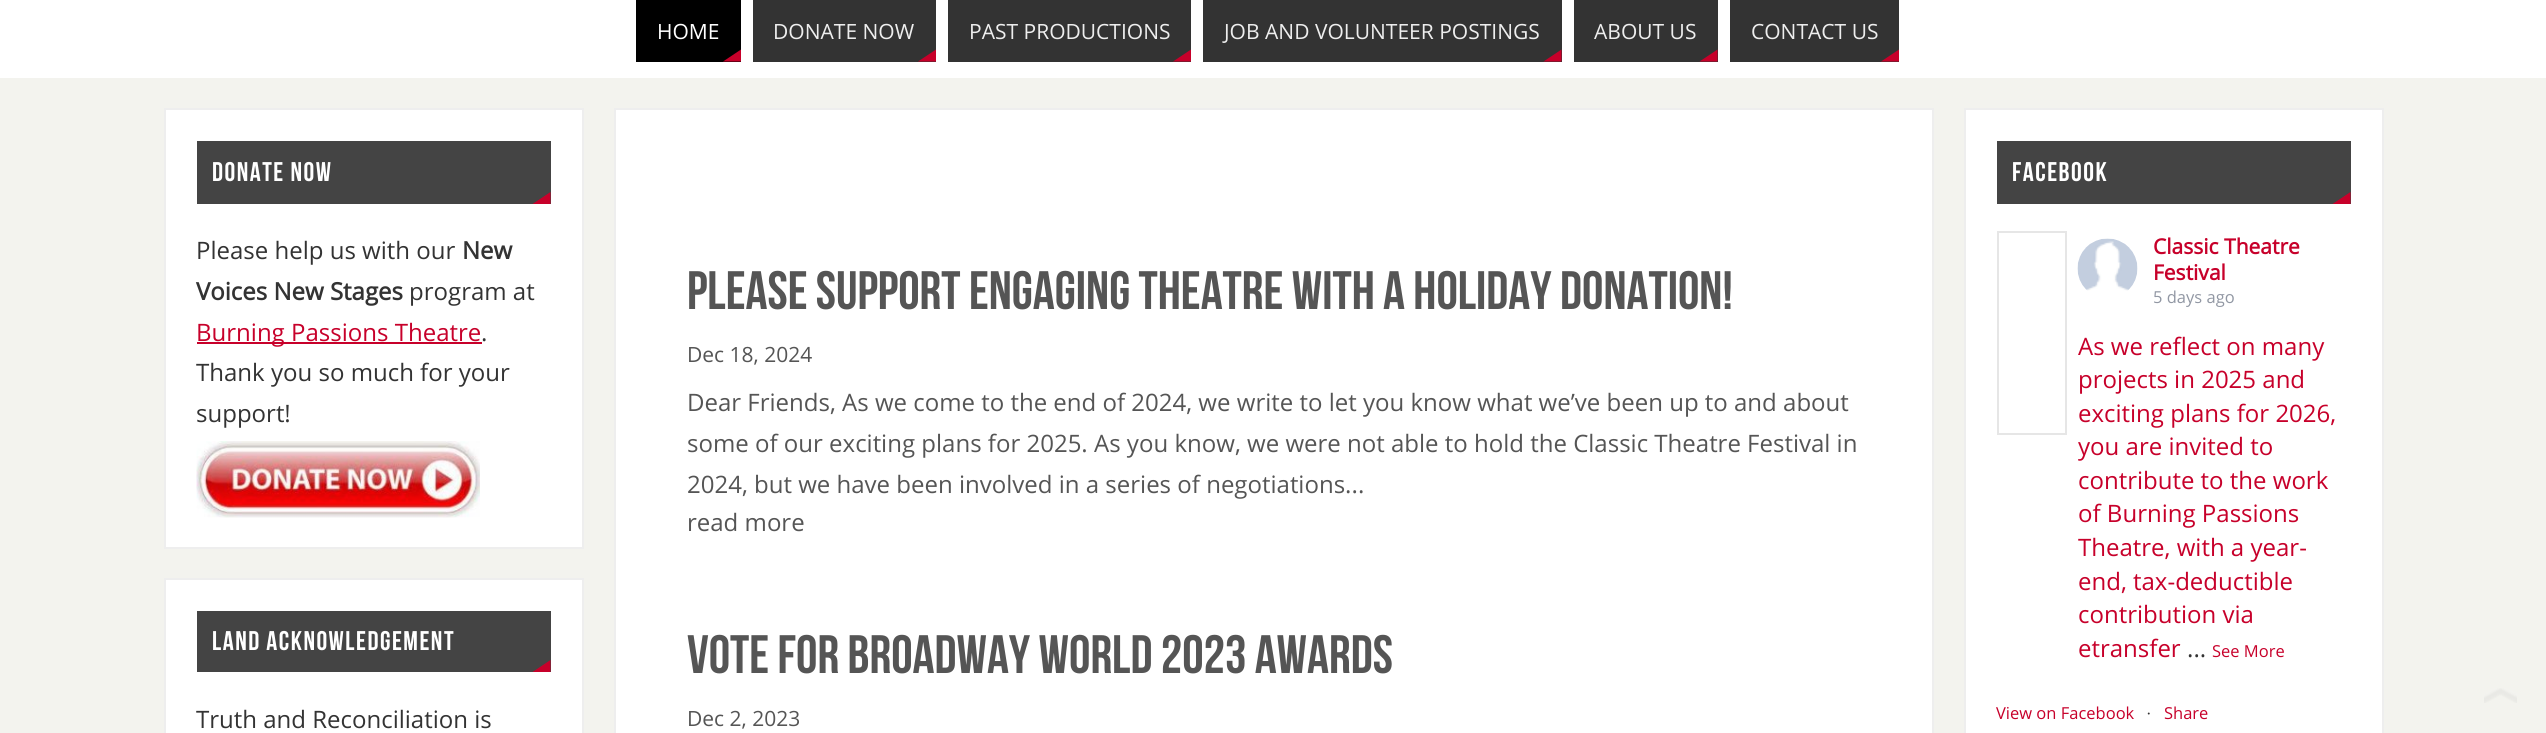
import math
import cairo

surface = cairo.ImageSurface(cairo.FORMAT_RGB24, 2546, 733)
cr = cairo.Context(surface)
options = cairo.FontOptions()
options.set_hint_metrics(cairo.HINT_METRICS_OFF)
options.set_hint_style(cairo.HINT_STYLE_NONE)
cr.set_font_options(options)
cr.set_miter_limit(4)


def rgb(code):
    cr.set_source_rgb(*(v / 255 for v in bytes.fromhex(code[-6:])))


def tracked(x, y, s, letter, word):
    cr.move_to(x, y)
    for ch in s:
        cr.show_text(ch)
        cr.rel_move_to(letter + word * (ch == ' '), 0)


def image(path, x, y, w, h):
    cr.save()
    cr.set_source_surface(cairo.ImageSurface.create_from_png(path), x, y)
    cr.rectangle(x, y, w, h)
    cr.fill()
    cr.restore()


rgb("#f3f3ee")
cr.paint()
rgb("#ffffff")
cr.rectangle(0, 0, 2546, 78)
cr.fill()
rgb("#000000")
cr.rectangle(636, 0, 105, 62)
cr.fill()
rgb("#c7002a")
cr.new_path()
cr.move_to(741, 61.5)
cr.line_to(723, 61.5)
cr.line_to(741, 49.5)
cr.close_path()
cr.fill()
rgb("#333333")
cr.rectangle(753, 0, 183, 62)
cr.fill()
rgb("#c7002a")
cr.new_path()
cr.move_to(936, 61.5)
cr.line_to(918, 61.5)
cr.line_to(936, 49.5)
cr.close_path()
cr.fill()
rgb("#333333")
cr.rectangle(948, 0, 243, 62)
cr.fill()
rgb("#c7002a")
cr.new_path()
cr.move_to(1191, 61.5)
cr.line_to(1173, 61.5)
cr.line_to(1191, 49.5)
cr.close_path()
cr.fill()
rgb("#333333")
cr.rectangle(1203, 0, 359, 62)
cr.fill()
rgb("#c7002a")
cr.new_path()
cr.move_to(1561.5, 61.5)
cr.line_to(1543.5, 61.5)
cr.line_to(1561.5, 49.5)
cr.close_path()
cr.fill()
rgb("#333333")
cr.rectangle(1574, 0, 144, 62)
cr.fill()
rgb("#c7002a")
cr.new_path()
cr.move_to(1717.5, 61.5)
cr.line_to(1699.5, 61.5)
cr.line_to(1717.5, 49.5)
cr.close_path()
cr.fill()
rgb("#333333")
cr.rectangle(1730, 0, 169, 62)
cr.fill()
rgb("#c7002a")
cr.new_path()
cr.move_to(1899, 61.5)
cr.line_to(1881, 61.5)
cr.line_to(1899, 49.5)
cr.close_path()
cr.fill()
rgb("#ffffff")
cr.rectangle(165, 109, 418, 439)
cr.fill_preserve()
rgb("#eeeeee")
cr.stroke()
rgb("#444444")
cr.rectangle(197, 141, 354, 63)
cr.fill()
rgb("#c7002a")
cr.new_path()
cr.move_to(550.5, 204)
cr.line_to(532.5, 204)
cr.line_to(550.5, 192)
cr.close_path()
cr.fill()
cr.rectangle(197, 342, 285, 2)
cr.fill()
image("img/1.png", 196, 441, 284, 77)
rgb("#ffffff")
cr.rectangle(165, 579, 418, 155)
cr.fill_preserve()
rgb("#eeeeee")
cr.stroke()
rgb("#444444")
cr.rectangle(197, 611, 354, 61)
cr.fill()
rgb("#c7002a")
cr.new_path()
cr.move_to(550.5, 672)
cr.line_to(532.5, 672)
cr.line_to(550.5, 660)
cr.close_path()
cr.fill()
rgb("#ffffff")
cr.rectangle(615, 109, 1318, 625)
cr.fill_preserve()
rgb("#eeeeee")
cr.stroke()
rgb("#ffffff")
cr.rectangle(1965, 109, 418, 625)
cr.fill_preserve()
rgb("#eeeeee")
cr.stroke()
rgb("#444444")
cr.rectangle(1997, 141, 354, 63)
cr.fill()
rgb("#c7002a")
cr.new_path()
cr.move_to(2350.5, 204)
cr.line_to(2332.5, 204)
cr.line_to(2350.5, 192)
cr.close_path()
cr.fill()
cr.rectangle(1998, 232, 68, 202)
rgb("#e6e6e6")
cr.stroke()
image("img/2.png", 2077, 238, 61, 53)
image("img/3.png", 2484, 688, 33, 15)
cr.select_font_face("Open Sans")
cr.set_font_size(21)
rgb("#ffffff")
cr.move_to(657, 39)
cr.show_text("HOME")
rgb("#eeeeee")
for x, y, s in [
    (773, 39, "DONATE NOW"),
    (969, 39, "PAST PRODUCTIONS"),
    (1224, 39, "JOB AND VOLUNTEER POSTINGS"),
    (1594, 39, "ABOUT US"),
    (1751, 39, "CONTACT US"),
]:
    cr.move_to(x, y)
    cr.show_text(s)
cr.select_font_face("Bebas Neue")
cr.set_font_size(27)
rgb("#ffffff")
tracked(212, 181, "DONATE NOW", 1.5, 0)
cr.select_font_face("Open Sans")
cr.set_font_size(24)
rgb("#333333")
cr.move_to(196, 259)
cr.show_text("Please help us with our")
cr.select_font_face("Open Sans", cairo.FONT_SLANT_NORMAL, cairo.FONT_WEIGHT_BOLD)
cr.move_to(462, 259)
cr.show_text("New")
cr.move_to(196, 300)
cr.show_text("Voices New Stages")
cr.select_font_face("Open Sans")
cr.move_to(409, 300)
cr.show_text("program at")
rgb("#c7002a")
cr.move_to(196, 341)
cr.show_text("Burning Passions Theatre")
rgb("#333333")
for x, y, s in [
    (481, 341, "."),
    (196, 381, "Thank you so much for your"),
    (196, 422, "support!"),
]:
    cr.move_to(x, y)
    cr.show_text(s)
cr.select_font_face("Bebas Neue")
cr.set_font_size(27)
rgb("#ffffff")
tracked(212, 650, "LAND ACKNOWLEDGEMENT", 1.5, 0)
cr.select_font_face("Open Sans")
cr.set_font_size(24)
rgb("#333333")
cr.move_to(196, 728)
cr.show_text("Truth and Reconciliation is")
cr.select_font_face("Bebas Neue")
cr.set_font_size(54)
rgb("#555555")
cr.move_to(687, 309)
cr.show_text("Please support Engaging Theatre with a Holiday Donation!")
cr.select_font_face("Open Sans")
cr.set_font_size(21)
cr.move_to(687, 362)
cr.show_text("Dec 18, 2024")
cr.set_font_size(24)
for x, y, s in [
    (687, 411, "Dear Friends, As we come to the end of 2024, we write to let you know what we’ve been up to and about"),
    (687, 452, "some of our exciting plans for 2025. As you know, we were not able to hold the Classic Theatre Festival in"),
    (687, 493, "2024, but we have been involved in a series of negotiations..."),
    (687, 531, "read more"),
]:
    cr.move_to(x, y)
    cr.show_text(s)
cr.select_font_face("Bebas Neue")
cr.set_font_size(54)
cr.move_to(687, 673)
cr.show_text("Vote for Broadway World 2023 Awards")
cr.select_font_face("Open Sans")
cr.set_font_size(21)
cr.move_to(687, 726)
cr.show_text("Dec 2, 2023")
cr.select_font_face("Bebas Neue")
cr.set_font_size(27)
rgb("#ffffff")
tracked(2012, 181, "FACEBOOK", 1.5, 0)
cr.select_font_face("Open Sans", cairo.FONT_SLANT_NORMAL, cairo.FONT_WEIGHT_BOLD)
cr.set_font_size(21)
rgb("#c7002a")
cr.move_to(2153, 254)
cr.show_text("Classic Theatre")
cr.move_to(2153, 280)
cr.show_text("Festival")
cr.select_font_face("Open Sans")
cr.set_font_size(16.5)
rgb("#9197a3")
cr.move_to(2153, 303)
cr.show_text("5 days ago")
cr.set_font_size(24)
rgb("#c7002a")
for x, y, s in [
    (2078, 355, "As we reflect on many"),
    (2078, 388, "projects in 2025 and"),
    (2078, 422, "exciting plans for 2026,"),
    (2078, 455, "you are invited to"),
    (2078, 489, "contribute to the work"),
    (2078, 522, "of Burning Passions"),
    (2078, 556, "Theatre, with a year-"),
    (2078, 590, "end, tax-deductible"),
    (2078, 623, "contribution via"),
    (2078, 657, "etransfer"),
]:
    cr.move_to(x, y)
    cr.show_text(s)
rgb("#333333")
cr.move_to(2187, 657)
cr.show_text("...")
cr.set_font_size(16.5)
rgb("#c7002a")
cr.move_to(2212, 657)
cr.show_text("See More")
cr.move_to(1996, 719)
cr.show_text("View on Facebook")
cr.select_font_face("Liberation Serif")
rgb("#333333")
cr.move_to(2146, 719)
cr.show_text("·")
cr.select_font_face("Open Sans")
rgb("#c7002a")
cr.move_to(2164, 719)
cr.show_text("Share")
surface.write_to_png("page.png")
